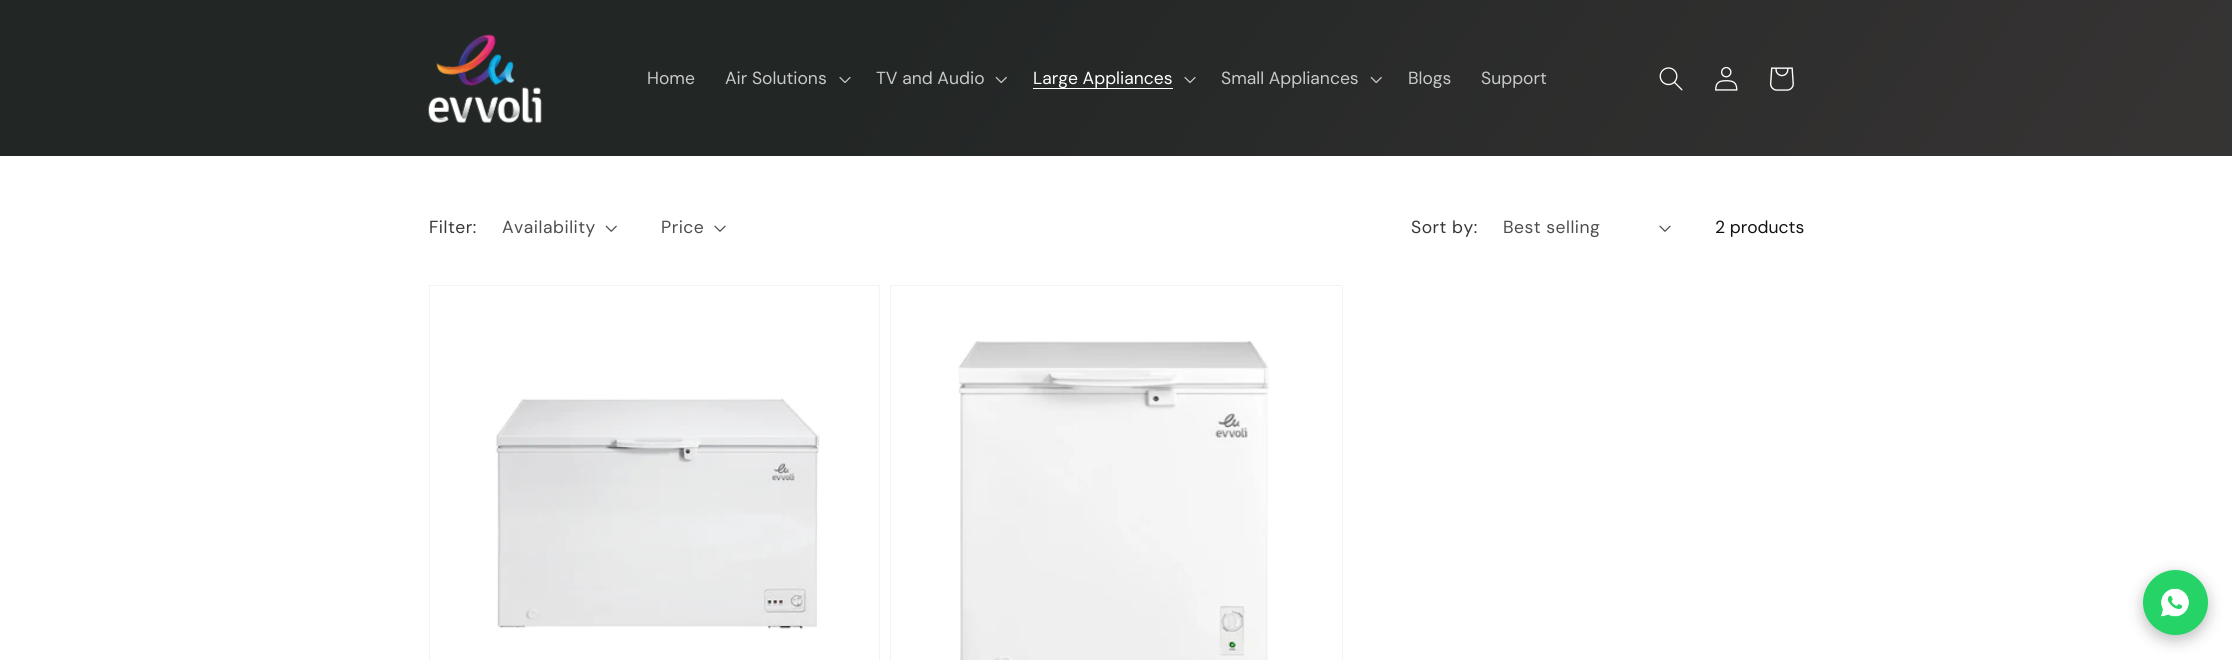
import math
import cairo

surface = cairo.ImageSurface(cairo.FORMAT_RGB24, 2232, 660)
cr = cairo.Context(surface)
options = cairo.FontOptions()
options.set_hint_metrics(cairo.HINT_METRICS_OFF)
options.set_hint_style(cairo.HINT_STYLE_NONE)
cr.set_font_options(options)
cr.set_miter_limit(4)


def rgb(code):
    cr.set_source_rgb(*(v / 255 for v in bytes.fromhex(code[-6:])))


def tracked(x, y, s, letter, word):
    cr.move_to(x, y)
    for ch in s:
        cr.show_text(ch)
        cr.rel_move_to(letter + word * (ch == ' '), 0)


def rrect(x, y, w, h, r):
    cr.new_sub_path()
    for i, (u, v) in enumerate([(x + w - r, y + h - r), (x + r, y + h - r), (x + r, y + r), (x + w - r, y + r)]):
        cr.arc(u, v, r, i * math.pi / 2, (i + 1) * math.pi / 2)
    cr.close_path()


def soft_shadow(x, y, w, h, r, blur, alpha):
    cr.push_group_with_content(cairo.CONTENT_ALPHA)
    cr.set_operator(cairo.OPERATOR_SOURCE)
    for i in range(15, -16, -2):
        e = blur * i / 6
        if min(w, h) + 2 * e > 0:
            cr.set_source_rgba(0, 0, 0, alpha * math.erfc((i - 1) / 8.5) / 2)
            rrect(x - e, y - e, w + 2 * e, h + 2 * e, max(0, min(r + e + blur * .6, min(w, h) / 2 + e)))
            cr.fill()
    cr.mask(cr.pop_group())


def image(path, x, y, w, h):
    cr.save()
    cr.set_source_surface(cairo.ImageSurface.create_from_png(path), x, y)
    cr.rectangle(x, y, w, h)
    cr.fill()
    cr.restore()


rgb("#ffffff")
cr.paint()
gradient = cairo.LinearGradient(2020, 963, 212, -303)
gradient.add_color_stop_rgba(0.16, 0.212, 0.2, 0.2, 1)
gradient.add_color_stop_rgba(0.66, 0.133, 0.149, 0.145, 1)
cr.set_source(gradient)
cr.rectangle(0, 0, 2232, 156)
cr.fill()
image("img/1.png", 428, 34, 114, 89)
image("img/2.png", 839, 77, 12, 6)
image("img/3.png", 995, 76, 12, 8)
rgb("#ffffff")
cr.rectangle(1033, 88, 140, 1)
cr.fill()
image("img/4.png", 1184, 77, 12, 6)
image("img/5.png", 1370, 76, 12, 8)
image("img/6.png", 1659, 67, 24, 24)
image("img/7.png", 1715, 66, 23, 25)
image("img/8.png", 1770, 67, 24, 24)
image("img/9.png", 605, 225, 12, 7)
image("img/10.png", 714, 225, 12, 7)
image("img/10.png", 1659, 225, 12, 7)
cr.rectangle(429.5, 285.5, 450, 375)
rgb("#f3f3f3")
cr.set_line_width(1)
cr.stroke()
image("img/11.png", 495, 398, 325, 231)
cr.rectangle(890.5, 285.5, 452, 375)
cr.stroke()
image("img/12.png", 958, 341, 311, 319)
rgb("#000000")
soft_shadow(2143, 575, 65, 65, 32.5, 7.5, 0.25)
rgb("#25d366")
cr.arc(2175.5, 602.5, 32.5, 0, 2 * math.pi)
cr.fill()
image("img/13.png", 2161, 588, 28, 29)
cr.select_font_face("DM Sans")
cr.set_font_size(17.5)
rgb("#c8c9c9")
for x, y, s in [
    (647, 84, "Home"),
    (725, 84, "Air Solutions"),
    (876, 84, "TV and Audio"),
]:
    cr.move_to(x, y)
    cr.show_text(s)
rgb("#ffffff")
cr.move_to(1033, 84)
cr.show_text("Large Appliances")
rgb("#c8c9c9")
for x, y, s in [
    (1221, 84, "Small Appliances"),
    (1408, 84, "Blogs"),
    (1481, 84, "Support"),
]:
    cr.move_to(x, y)
    cr.show_text(s)
rgb("#363636")
tracked(429, 233, "Filter:", 0.5, 0)
rgb("#4d4d4d")
tracked(502, 233, "Availability", 0.5, 0)
tracked(661, 233, "Price", 0.5, 0)
rgb("#363636")
tracked(1411, 233, "Sort by:", 0.5, 0)
rgb("#4d4d4d")
tracked(1503, 233, "Best selling", 0.5, 0)
rgb("#121212")
cr.move_to(1715, 233)
cr.show_text("2 products")
surface.write_to_png("page.png")
